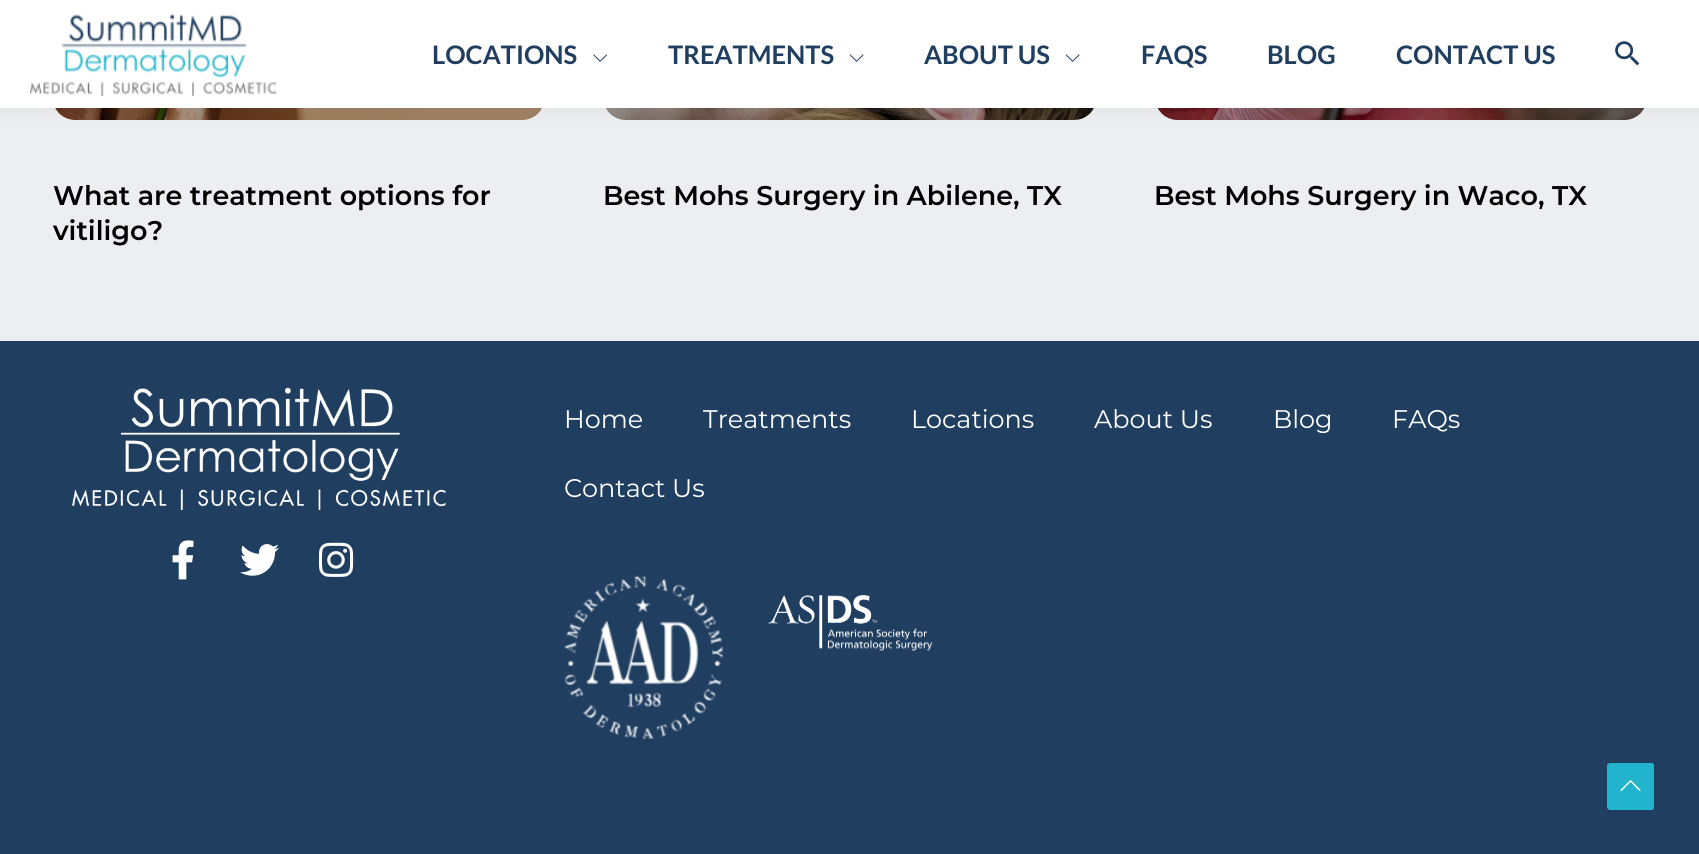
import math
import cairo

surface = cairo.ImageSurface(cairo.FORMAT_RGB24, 1699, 854)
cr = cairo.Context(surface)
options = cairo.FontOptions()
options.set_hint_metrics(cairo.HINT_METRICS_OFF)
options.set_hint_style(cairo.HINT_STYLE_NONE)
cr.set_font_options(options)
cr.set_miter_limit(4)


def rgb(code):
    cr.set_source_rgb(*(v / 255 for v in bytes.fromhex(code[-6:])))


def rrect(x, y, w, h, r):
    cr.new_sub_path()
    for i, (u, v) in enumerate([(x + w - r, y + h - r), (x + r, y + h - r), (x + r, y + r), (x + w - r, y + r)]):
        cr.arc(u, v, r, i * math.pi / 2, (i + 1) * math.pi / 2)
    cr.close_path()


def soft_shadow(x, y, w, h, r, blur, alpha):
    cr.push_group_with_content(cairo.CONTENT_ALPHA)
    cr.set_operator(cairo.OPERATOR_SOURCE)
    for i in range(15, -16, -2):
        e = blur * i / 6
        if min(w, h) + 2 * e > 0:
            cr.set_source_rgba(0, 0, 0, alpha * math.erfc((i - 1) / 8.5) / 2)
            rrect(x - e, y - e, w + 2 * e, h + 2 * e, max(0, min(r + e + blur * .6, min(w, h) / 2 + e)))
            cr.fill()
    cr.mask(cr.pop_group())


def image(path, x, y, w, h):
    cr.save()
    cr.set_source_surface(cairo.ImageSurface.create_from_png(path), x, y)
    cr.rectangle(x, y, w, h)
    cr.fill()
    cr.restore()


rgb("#eceef1")
cr.paint()
image("img/5.png", 55, 108, 487, 12)
gradient = cairo.LinearGradient(299, 120, 299, -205)
gradient.add_color_stop_rgba(0, 0, 0, 0, 0.35)
gradient.add_color_stop_rgba(0.75, 0, 0, 0, 0)
cr.set_source(gradient)
rrect(53, -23, 492, 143, 23)
cr.fill()
image("img/6.png", 605, 108, 489, 12)
gradient = cairo.LinearGradient(850, 120, 850, -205)
gradient.add_color_stop_rgba(0, 0, 0, 0, 0.35)
gradient.add_color_stop_rgba(0.75, 0, 0, 0, 0)
cr.set_source(gradient)
rrect(603, -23, 494, 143, 23)
cr.fill()
image("img/7.png", 1157, 108, 488, 12)
gradient = cairo.LinearGradient(1401, 120, 1401, -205)
gradient.add_color_stop_rgba(0, 0, 0, 0, 0.35)
gradient.add_color_stop_rgba(0.75, 0, 0, 0, 0)
cr.set_source(gradient)
rrect(1155, -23, 492, 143, 23)
cr.fill()
rgb("#243242")
soft_shadow(0, 3, 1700, 108, 0, 7.5, 0.07)
rgb("#ffffff")
cr.rectangle(0, 0, 1699, 108)
cr.fill()
image("img/1.png", 30, 14, 247, 82)
image("img/2.png", 593, 54, 14, 8)
image("img/3.png", 849, 54, 15, 8)
image("img/3.png", 1065, 54, 15, 8)
image("img/4.png", 1615, 41, 25, 25)
rgb("#1f3e60")
cr.rectangle(0, 341, 1699, 513)
cr.fill()
image("img/8.png", 72, 387, 374, 123)
image("img/9.png", 172, 540, 22, 40)
image("img/10.png", 240, 544, 39, 32)
image("img/11.png", 318, 542, 36, 35)
image("img/12.png", 564, 575, 160, 164)
image("img/13.png", 768, 595, 164, 56)
rgb("#22b4cc")
cr.new_path()
cr.move_to(1652, 810)
cr.line_to(1610, 810)
cr.curve_to(1609, 810, 1607, 809, 1607, 807)
cr.line_to(1607, 766)
cr.curve_to(1607, 764, 1609, 763, 1610, 763)
cr.line_to(1652, 763)
cr.curve_to(1653, 763, 1654, 764, 1654, 766)
cr.line_to(1654, 807)
cr.curve_to(1654, 809, 1653, 810, 1652, 810)
cr.close_path()
cr.fill()
image("img/14.png", 1620, 780, 21, 11)
cr.select_font_face("Lato", cairo.FONT_SLANT_NORMAL, cairo.FONT_WEIGHT_BOLD)
cr.set_font_size(25.5)
rgb("#1f3e60")
for x, y, s in [
    (432, 64, "LOCATIONS"),
    (668, 64, "TREATMENTS"),
    (924, 64, "ABOUT US"),
    (1141, 64, "FAQS"),
    (1267, 64, "BLOG"),
    (1396, 64, "CONTACT US"),
]:
    cr.move_to(x, y)
    cr.show_text(s)
cr.select_font_face("Montserrat SemiBold")
cr.set_font_size(27)
rgb("#000000")
for x, y, s in [
    (53, 205, "What are treatment options for"),
    (53, 240, "vitiligo?"),
    (603, 205, "Best Mohs Surgery in Abilene, TX"),
    (1154, 205, "Best Mohs Surgery in Waco, TX"),
]:
    cr.move_to(x, y)
    cr.show_text(s)
cr.select_font_face("Montserrat")
cr.set_font_size(25.5)
rgb("#ffffff")
for x, y, s in [
    (564, 428, "Home"),
    (703, 428, "Treatments"),
    (911, 428, "Locations"),
    (1094, 428, "About Us"),
    (1273, 428, "Blog"),
    (1392, 428, "FAQs"),
    (564, 497, "Contact Us"),
]:
    cr.move_to(x, y)
    cr.show_text(s)
surface.write_to_png("page.png")
